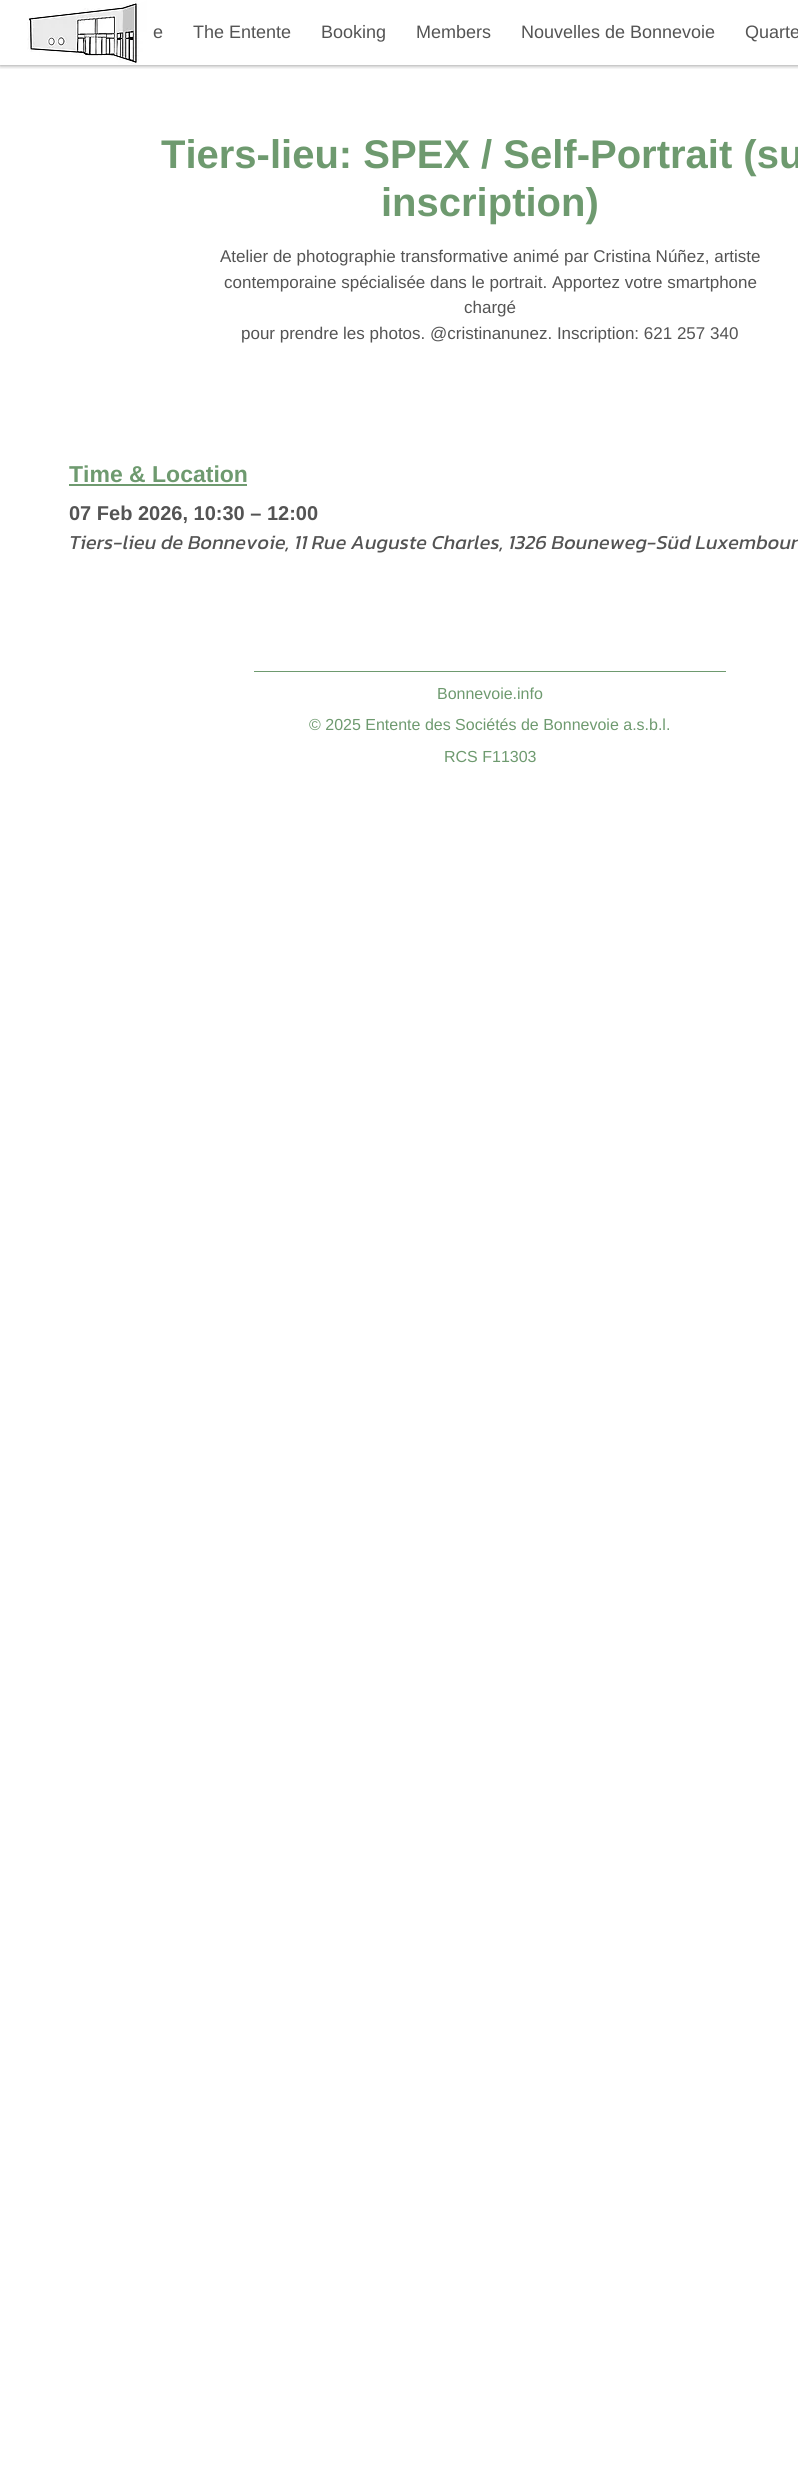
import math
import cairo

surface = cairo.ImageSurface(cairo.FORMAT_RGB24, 798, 2479)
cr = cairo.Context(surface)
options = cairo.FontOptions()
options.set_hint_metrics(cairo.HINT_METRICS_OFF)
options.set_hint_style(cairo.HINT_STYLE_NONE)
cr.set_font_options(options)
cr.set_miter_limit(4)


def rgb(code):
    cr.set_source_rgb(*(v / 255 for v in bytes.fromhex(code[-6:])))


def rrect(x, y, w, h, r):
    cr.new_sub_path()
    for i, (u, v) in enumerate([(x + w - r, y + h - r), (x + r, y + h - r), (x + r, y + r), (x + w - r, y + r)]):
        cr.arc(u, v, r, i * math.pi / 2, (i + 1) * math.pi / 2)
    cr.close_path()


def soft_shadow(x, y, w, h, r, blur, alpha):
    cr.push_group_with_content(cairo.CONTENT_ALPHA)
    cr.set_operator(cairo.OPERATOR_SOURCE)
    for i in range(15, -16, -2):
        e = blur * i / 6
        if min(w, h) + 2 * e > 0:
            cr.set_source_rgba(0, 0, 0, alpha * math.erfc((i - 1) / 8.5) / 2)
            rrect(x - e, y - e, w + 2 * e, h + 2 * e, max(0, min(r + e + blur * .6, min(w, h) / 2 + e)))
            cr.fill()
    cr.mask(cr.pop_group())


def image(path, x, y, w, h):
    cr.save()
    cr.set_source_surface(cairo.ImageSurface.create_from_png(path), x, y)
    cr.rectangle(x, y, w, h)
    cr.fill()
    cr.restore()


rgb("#ffffff")
cr.paint()
cr.save()
cr.rectangle(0, 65, 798, 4)
cr.clip()
rgb("#000000")
soft_shadow(0, 0, 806, 65, 0, 2.5, 0.5)
cr.restore()
image("img/1.png", 27, 0, 120, 65)
rgb("#6e9a6f")
cr.rectangle(69, 484, 178, 2)
cr.fill()
cr.rectangle(254, 671, 472, 1)
cr.fill()
cr.select_font_face("Liberation Sans")
cr.set_font_size(18)
rgb("#545454")
for x, y, s in [
    (153, 38, "e"),
    (193, 38, "The Entente"),
    (321, 38, "Booking"),
    (416, 38, "Members"),
    (521, 38, "Nouvelles de Bonnevoie"),
    (745, 38, "Quarte"),
]:
    cr.move_to(x, y)
    cr.show_text(s)
cr.select_font_face("Liberation Sans", cairo.FONT_SLANT_NORMAL, cairo.FONT_WEIGHT_BOLD)
cr.set_font_size(40)
rgb("#6e9a6f")
cr.move_to(161, 168)
cr.show_text("Tiers-lieu: SPEX / Self-Portrait (su")
cr.move_to(381, 216)
cr.show_text("inscription)")
cr.select_font_face("Liberation Sans")
cr.set_font_size(17)
rgb("#545454")
for x, y, s in [
    (220, 262, "Atelier de photographie transformative animé par Cristina Núñez, artiste"),
    (224, 288, "contemporaine spécialisée dans le portrait. Apportez votre smartphone"),
    (464, 313, "chargé"),
    (241, 339, "pour prendre les photos. @cristinanunez. Inscription: 621 257 340"),
]:
    cr.move_to(x, y)
    cr.show_text(s)
cr.select_font_face("Liberation Sans", cairo.FONT_SLANT_NORMAL, cairo.FONT_WEIGHT_BOLD)
cr.set_font_size(23)
rgb("#6e9a6f")
cr.move_to(69, 482)
cr.show_text("Time & Location")
cr.set_font_size(20)
rgb("#545454")
cr.move_to(69, 520)
cr.show_text("07 Feb 2026, 10:30 – 12:00")
cr.select_font_face("Kanit", cairo.FONT_SLANT_ITALIC)
cr.move_to(69, 549)
cr.show_text("Tiers-lieu de Bonnevoie, 11 Rue Auguste Charles, 1326 Bouneweg-Süd Luxembour")
cr.select_font_face("Liberation Sans")
cr.set_font_size(16)
rgb("#6e9a6f")
for x, y, s in [
    (437, 699, "Bonnevoie.info"),
    (309, 730, "© 2025 Entente des Sociétés de Bonnevoie a.s.b.l."),
    (444, 762, "RCS F11303"),
]:
    cr.move_to(x, y)
    cr.show_text(s)
surface.write_to_png("page.png")
